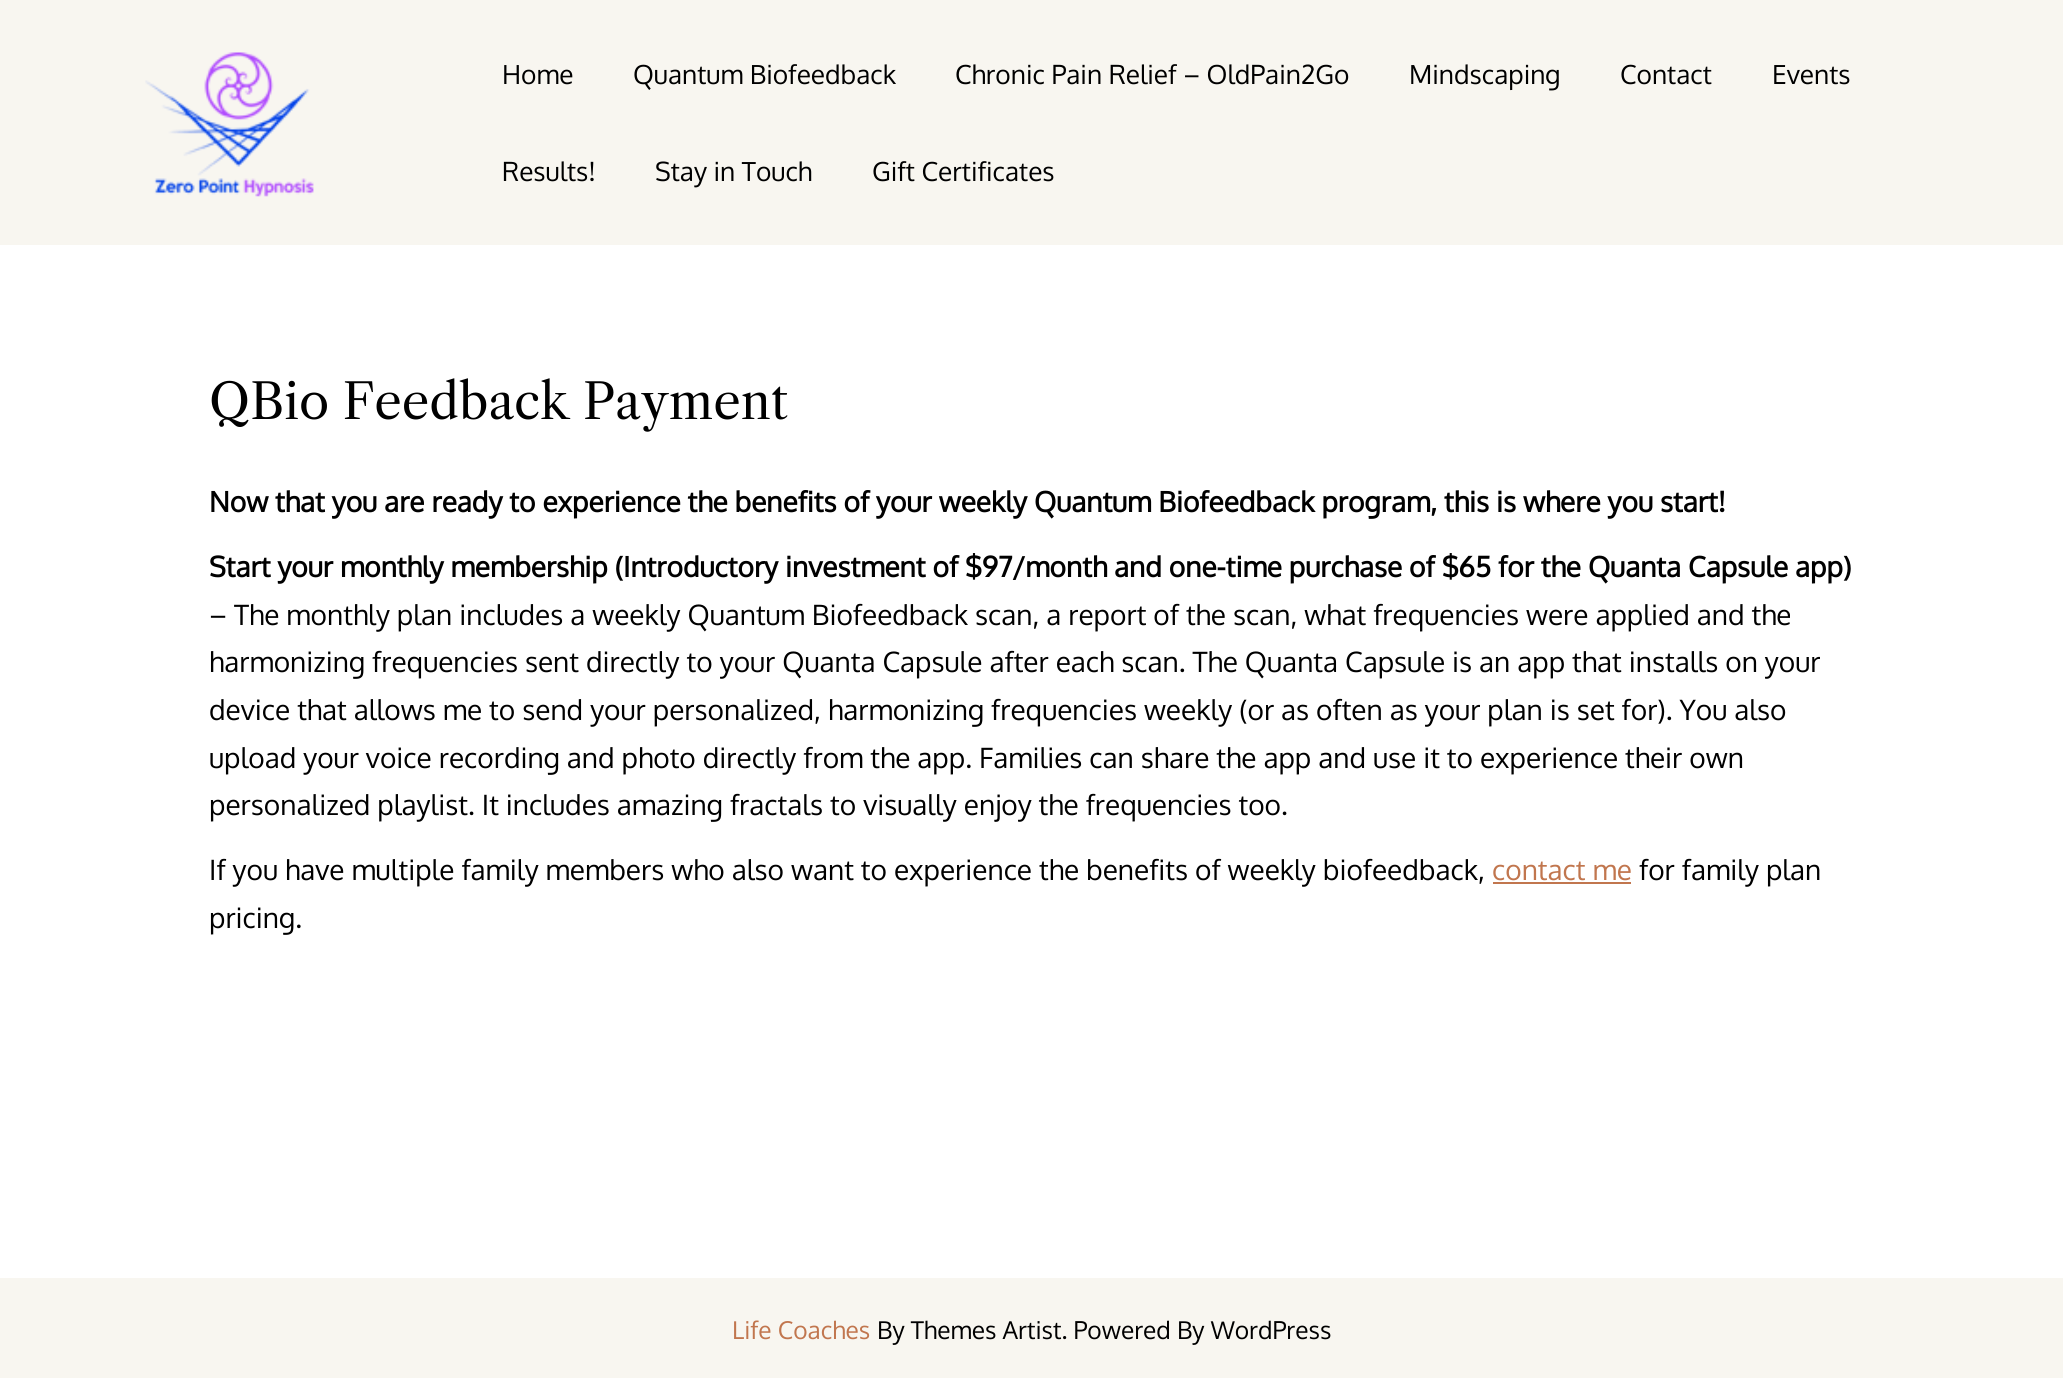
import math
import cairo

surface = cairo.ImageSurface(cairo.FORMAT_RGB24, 2063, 1378)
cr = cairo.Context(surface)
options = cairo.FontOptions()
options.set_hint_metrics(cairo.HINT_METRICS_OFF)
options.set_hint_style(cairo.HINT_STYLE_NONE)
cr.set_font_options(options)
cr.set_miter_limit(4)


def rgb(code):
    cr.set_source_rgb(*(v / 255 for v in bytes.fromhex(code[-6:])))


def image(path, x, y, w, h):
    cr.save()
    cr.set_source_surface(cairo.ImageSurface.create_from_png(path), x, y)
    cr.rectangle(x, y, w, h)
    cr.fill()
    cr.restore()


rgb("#ffffff")
cr.paint()
rgb("#f8f6f0")
cr.rectangle(0, 0, 2063, 245)
cr.fill()
image("img/1.png", 145, 52, 169, 145)
rgb("#c1764e")
cr.rectangle(1493, 882, 138, 2)
cr.fill()
rgb("#f8f6f0")
cr.rectangle(0, 1278, 2063, 100)
cr.fill()
cr.select_font_face("Oxygen")
cr.set_font_size(26.25)
rgb("#000000")
for x, y, s in [
    (502, 84, "Home"),
    (633, 84, "Quantum Biofeedback"),
    (955, 84, "Chronic Pain Relief – OldPain2Go"),
    (1409, 84, "Mindscaping"),
    (1620, 84, "Contact"),
    (1772, 84, "Events"),
    (502, 181, "Results!"),
    (655, 181, "Stay in Touch"),
    (872, 181, "Gift Certificates"),
]:
    cr.move_to(x, y)
    cr.show_text(s)
cr.select_font_face("Libre Caslon Text")
cr.set_font_size(49)
cr.move_to(209, 419)
cr.show_text("QBio Feedback Payment")
cr.select_font_face("Oxygen", cairo.FONT_SLANT_NORMAL, cairo.FONT_WEIGHT_BOLD)
cr.set_font_size(28)
cr.move_to(209, 512)
cr.show_text("Now that you are ready to experience the benefits of your weekly Quantum Biofeedback program, this is where you start!")
cr.move_to(209, 577)
cr.show_text("Start your monthly membership (Introductory investment of $97/month and one-time purchase of $65 for the Quanta Capsule app)")
cr.select_font_face("Oxygen")
for x, y, s in [
    (209, 625, "– The monthly plan includes a weekly Quantum Biofeedback scan, a report of the scan, what frequencies were applied and the"),
    (209, 672, "harmonizing frequencies sent directly to your Quanta Capsule after each scan. The Quanta Capsule is an app that installs on your"),
    (209, 720, "device that allows me to send your personalized, harmonizing frequencies weekly (or as often as your plan is set for). You also"),
    (209, 768, "upload your voice recording and photo directly from the app. Families can share the app and use it to experience their own"),
    (209, 815, "personalized playlist. It includes amazing fractals to visually enjoy the frequencies too."),
    (209, 880, "If you have multiple family members who also want to experience the benefits of weekly biofeedback,"),
]:
    cr.move_to(x, y)
    cr.show_text(s)
rgb("#c1764e")
cr.move_to(1492, 880)
cr.show_text("contact me")
rgb("#000000")
cr.move_to(1639, 880)
cr.show_text("for family plan")
cr.move_to(209, 928)
cr.show_text("pricing.")
cr.set_font_size(24.5)
rgb("#c1764e")
cr.move_to(732, 1339)
cr.show_text("Life Coaches")
rgb("#000000")
cr.move_to(877, 1339)
cr.show_text("By Themes Artist. Powered By WordPress")
surface.write_to_png("page.png")
